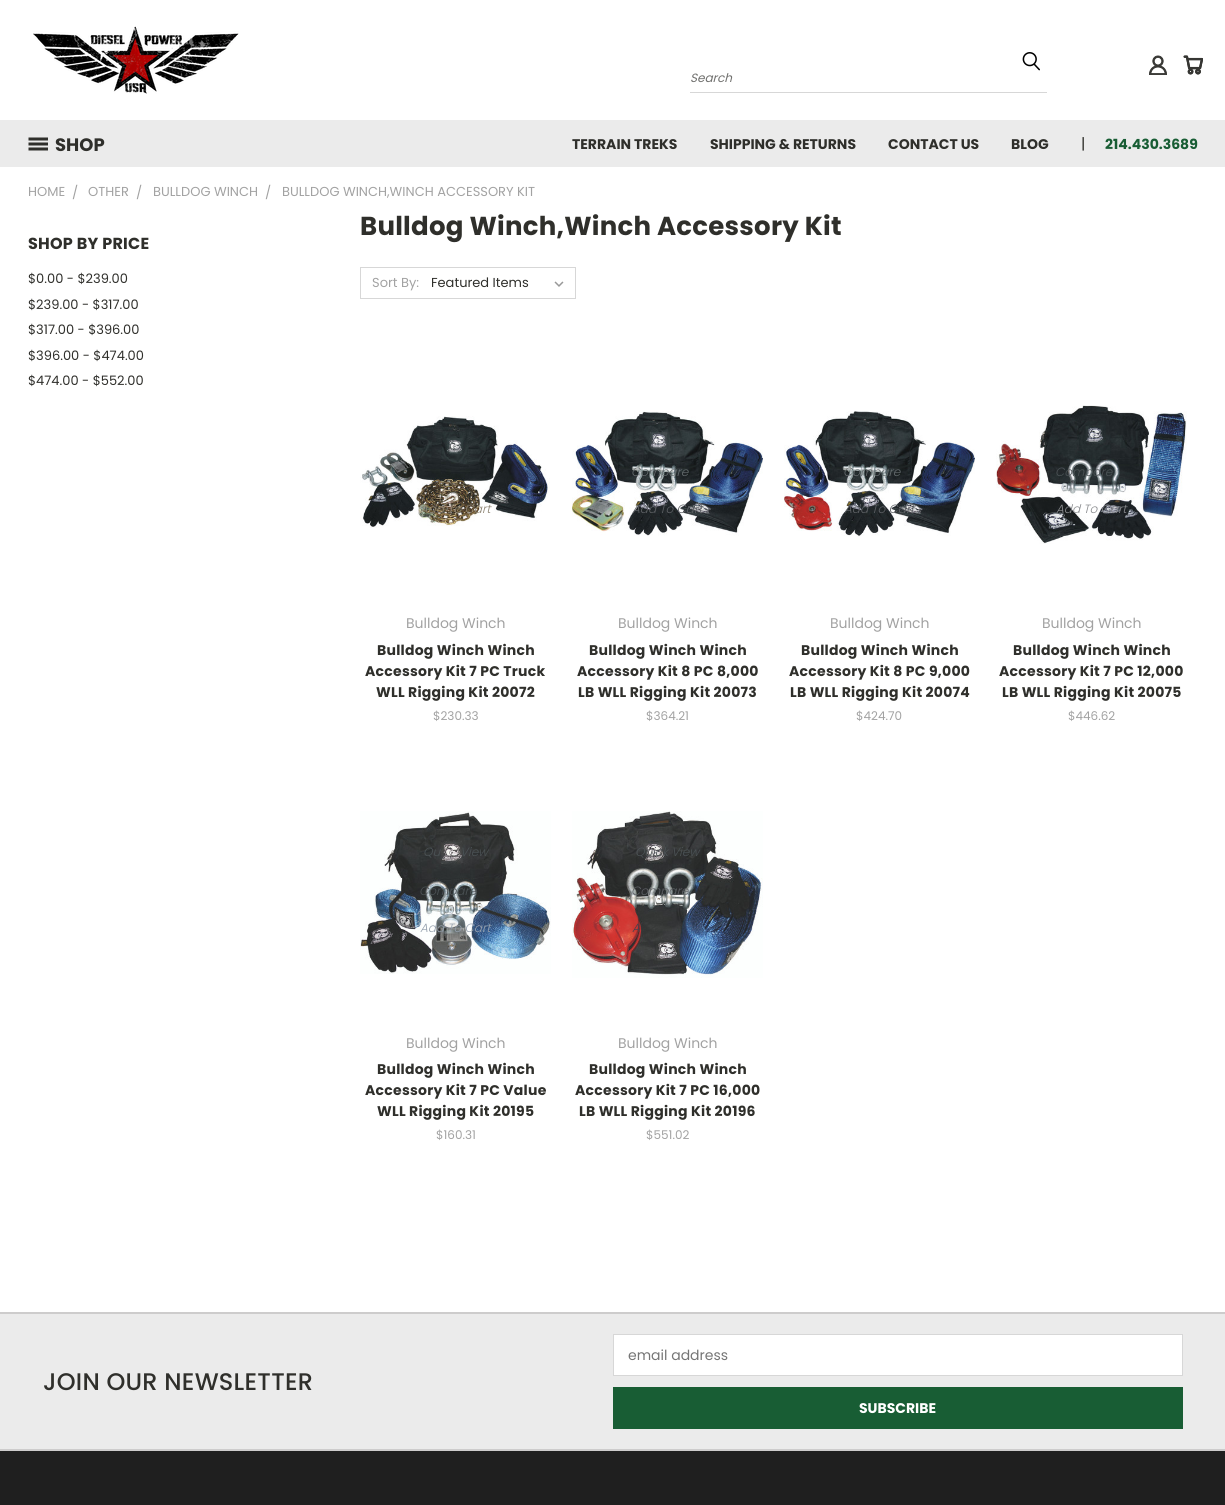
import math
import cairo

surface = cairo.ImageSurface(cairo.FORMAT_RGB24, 1225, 1505)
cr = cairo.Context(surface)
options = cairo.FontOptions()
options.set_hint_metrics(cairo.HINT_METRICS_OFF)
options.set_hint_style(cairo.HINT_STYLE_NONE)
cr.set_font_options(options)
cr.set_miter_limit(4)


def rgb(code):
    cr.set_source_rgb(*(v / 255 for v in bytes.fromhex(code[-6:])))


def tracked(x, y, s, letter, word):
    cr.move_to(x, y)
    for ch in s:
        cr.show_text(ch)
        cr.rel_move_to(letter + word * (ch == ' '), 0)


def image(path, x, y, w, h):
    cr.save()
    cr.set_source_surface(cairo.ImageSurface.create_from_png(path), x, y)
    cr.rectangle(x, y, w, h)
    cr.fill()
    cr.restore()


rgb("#ffffff")
cr.paint()
image("img/1.png", 33, 26, 206, 68)
image("img/2.png", 1149, 55, 18, 20)
image("img/3.png", 1183, 55, 20, 20)
image("img/4.png", 1022, 52, 18, 19)
rgb("#d7d7d7")
cr.rectangle(690, 92, 357, 1)
cr.fill()
rgb("#ebebeb")
cr.rectangle(0, 120, 1225, 47)
cr.fill()
image("img/5.png", 28, 137, 20, 14)
cr.rectangle(360.5, 267.5, 215, 31)
rgb("#d7d7d7")
cr.set_line_width(1)
cr.stroke()
image("img/6.png", 554, 281, 10, 6)
image("img/7.png", 360, 416, 190, 112)
image("img/8.png", 572, 411, 191, 125)
image("img/9.png", 784, 411, 191, 126)
image("img/10.png", 996, 405, 191, 139)
image("img/11.png", 360, 811, 191, 163)
image("img/12.png", 572, 811, 191, 167)
rgb("#ebebeb")
cr.rectangle(0, 1314, 1225, 135)
cr.fill()
rgb("#cdcccc")
cr.rectangle(0, 1312, 1225, 2)
cr.fill()
rgb("#ffffff")
cr.rectangle(613.5, 1334.5, 569, 41)
cr.fill_preserve()
rgb("#d7d7d7")
cr.stroke()
for x, y, w, h, color in [
    (613, 1387, 570, 42, "#185d34"),
    (0, 1451, 1225, 54, "#1f1f1f"),
    (0, 1449, 1225, 2, "#cdcccc"),
]:
    rgb(color)
    cr.rectangle(x, y, w, h)
    cr.fill()
cr.select_font_face("Poppins", cairo.FONT_SLANT_ITALIC)
cr.set_font_size(12)
rgb("#70706e")
cr.move_to(690, 82)
cr.show_text("Search")
cr.select_font_face("Poppins", cairo.FONT_SLANT_NORMAL, cairo.FONT_WEIGHT_BOLD)
cr.set_font_size(18)
rgb("#2f2f2b")
cr.move_to(55, 151)
cr.show_text("SHOP")
cr.set_font_size(14)
for x, y, s in [
    (572, 149, "TERRAIN TREKS"),
    (710, 149, "SHIPPING & RETURNS"),
    (888, 149, "CONTACT US"),
    (1011, 149, "BLOG"),
]:
    cr.move_to(x, y)
    cr.show_text(s)
cr.select_font_face("Poppins")
cr.set_font_size(15)
cr.move_to(1081, 149)
cr.show_text("|")
cr.select_font_face("Poppins", cairo.FONT_SLANT_NORMAL, cairo.FONT_WEIGHT_BOLD)
cr.set_font_size(14)
rgb("#185d34")
cr.move_to(1105, 149)
cr.show_text("214.430.3689")
cr.select_font_face("Poppins")
cr.set_font_size(13)
rgb("#a2a2a2")
for x, y, s in [
    (28, 196, "HOME"),
    (72, 197, "/"),
    (88, 196, "OTHER"),
    (136, 197, "/"),
    (153, 196, "BULLDOG WINCH"),
    (265, 197, "/"),
    (282, 196, "BULLDOG WINCH,WINCH ACCESSORY KIT"),
]:
    cr.move_to(x, y)
    cr.show_text(s)
cr.select_font_face("Poppins", cairo.FONT_SLANT_NORMAL, cairo.FONT_WEIGHT_BOLD)
cr.set_font_size(16)
rgb("#2f2f2b")
tracked(28, 249, "SHOP BY PRICE", 0.25, 0)
cr.select_font_face("Poppins")
cr.set_font_size(13)
for x, y, s in [
    (28, 283, "$0.00 - $239.00"),
    (28, 309, "$239.00 - $317.00"),
    (28, 334, "$317.00 - $396.00"),
    (28, 360, "$396.00 - $474.00"),
    (28, 385, "$474.00 - $552.00"),
]:
    cr.move_to(x, y)
    cr.show_text(s)
cr.select_font_face("Poppins", cairo.FONT_SLANT_NORMAL, cairo.FONT_WEIGHT_BOLD)
cr.set_font_size(26)
tracked(360, 235, "Bulldog Winch,Winch Accessory Kit", 0.25, 0)
cr.select_font_face("Poppins")
cr.set_font_size(13)
rgb("#a2a2a2")
cr.move_to(372, 287)
cr.show_text("Sort By:")
rgb("#2f2f2b")
cr.move_to(431, 287)
cr.show_text("Featured Items")
cr.select_font_face("Poppins Light", cairo.FONT_SLANT_ITALIC)
cr.set_font_size(12)
rgb("#8d8473")
cr.move_to(420, 513)
cr.show_text("Add To Cart")
cr.select_font_face("Poppins")
cr.set_font_size(14)
rgb("#a2a2a2")
cr.move_to(406, 628)
cr.show_text("Bulldog Winch")
cr.select_font_face("Poppins", cairo.FONT_SLANT_NORMAL, cairo.FONT_WEIGHT_BOLD)
rgb("#2f2f2b")
for x, y, s in [
    (377, 655, "Bulldog Winch Winch"),
    (365, 676, "Accessory Kit 7 PC Truck"),
    (376, 697, "WLL Rigging Kit 20072"),
]:
    tracked(x, y, s, 0.25, 0)
cr.select_font_face("Poppins")
cr.set_font_size(12)
rgb("#a2a2a2")
cr.move_to(433, 720)
cr.show_text("$230.33")
cr.select_font_face("Poppins Light", cairo.FONT_SLANT_ITALIC)
rgb("#656c6e")
cr.move_to(631, 476)
cr.show_text("Compare")
rgb("#5d6064")
cr.move_to(632, 513)
cr.show_text("Add To Cart")
cr.select_font_face("Poppins")
cr.set_font_size(14)
rgb("#a2a2a2")
cr.move_to(618, 628)
cr.show_text("Bulldog Winch")
cr.select_font_face("Poppins", cairo.FONT_SLANT_NORMAL, cairo.FONT_WEIGHT_BOLD)
rgb("#2f2f2b")
for x, y, s in [
    (589, 655, "Bulldog Winch Winch"),
    (577, 676, "Accessory Kit 8 PC 8,000"),
    (578, 697, "LB WLL Rigging Kit 20073"),
]:
    tracked(x, y, s, 0.25, 0)
cr.select_font_face("Poppins")
cr.set_font_size(12)
rgb("#a2a2a2")
cr.move_to(646, 720)
cr.show_text("$364.21")
cr.select_font_face("Poppins Light", cairo.FONT_SLANT_ITALIC)
rgb("#656c6e")
cr.move_to(843, 476)
cr.show_text("Compare")
rgb("#5d6064")
cr.move_to(844, 513)
cr.show_text("Add To Cart")
cr.select_font_face("Poppins")
cr.set_font_size(14)
rgb("#a2a2a2")
cr.move_to(830, 628)
cr.show_text("Bulldog Winch")
cr.select_font_face("Poppins", cairo.FONT_SLANT_NORMAL, cairo.FONT_WEIGHT_BOLD)
rgb("#2f2f2b")
for x, y, s in [
    (801, 655, "Bulldog Winch Winch"),
    (789, 676, "Accessory Kit 8 PC 9,000"),
    (790, 697, "LB WLL Rigging Kit 20074"),
]:
    tracked(x, y, s, 0.25, 0)
cr.select_font_face("Poppins")
cr.set_font_size(12)
rgb("#a2a2a2")
cr.move_to(856, 720)
cr.show_text("$424.70")
cr.select_font_face("Poppins Light", cairo.FONT_SLANT_ITALIC)
rgb("#4b5255")
cr.move_to(1055, 476)
cr.show_text("Compare")
rgb("#898b8e")
cr.move_to(1056, 513)
cr.show_text("Add To Cart")
cr.select_font_face("Poppins")
cr.set_font_size(14)
rgb("#a2a2a2")
cr.move_to(1042, 628)
cr.show_text("Bulldog Winch")
cr.select_font_face("Poppins", cairo.FONT_SLANT_NORMAL, cairo.FONT_WEIGHT_BOLD)
rgb("#2f2f2b")
for x, y, s in [
    (1013, 655, "Bulldog Winch Winch"),
    (999, 676, "Accessory Kit 7 PC 12,000"),
    (1002, 697, "LB WLL Rigging Kit 20075"),
]:
    tracked(x, y, s, 0.25, 0)
cr.select_font_face("Poppins")
cr.set_font_size(12)
rgb("#a2a2a2")
cr.move_to(1068, 720)
cr.show_text("$446.62")
cr.select_font_face("Poppins Light", cairo.FONT_SLANT_ITALIC)
rgb("#4b5255")
for x, y, s in [
    (423, 856, "Qu"),
    (460, 856, "View"),
    (419, 895, "Compare"),
]:
    cr.move_to(x, y)
    cr.show_text(s)
rgb("#95a0ad")
cr.move_to(420, 932)
cr.show_text("Add To Cart")
cr.select_font_face("Poppins")
cr.set_font_size(14)
rgb("#a2a2a2")
cr.move_to(406, 1048)
cr.show_text("Bulldog Winch")
cr.select_font_face("Poppins", cairo.FONT_SLANT_NORMAL, cairo.FONT_WEIGHT_BOLD)
rgb("#2f2f2b")
for x, y, s in [
    (377, 1074, "Bulldog Winch Winch"),
    (365, 1095, "Accessory Kit 7 PC Value"),
    (377, 1116, "WLL Rigging Kit 20195"),
]:
    tracked(x, y, s, 0.25, 0)
cr.select_font_face("Poppins")
cr.set_font_size(12)
rgb("#a2a2a2")
cr.move_to(436, 1139)
cr.show_text("$160.31")
cr.select_font_face("Poppins Light", cairo.FONT_SLANT_ITALIC)
rgb("#4b5255")
cr.move_to(635, 856)
cr.show_text("Quick View")
rgb("#5d6064")
cr.move_to(631, 895)
cr.show_text("Compare")
rgb("#46414d")
cr.move_to(632, 932)
cr.show_text("A")
cr.select_font_face("Poppins")
cr.set_font_size(14)
rgb("#a2a2a2")
cr.move_to(618, 1048)
cr.show_text("Bulldog Winch")
cr.select_font_face("Poppins", cairo.FONT_SLANT_NORMAL, cairo.FONT_WEIGHT_BOLD)
rgb("#2f2f2b")
for x, y, s in [
    (589, 1074, "Bulldog Winch Winch"),
    (575, 1095, "Accessory Kit 7 PC 16,000"),
    (579, 1116, "LB WLL Rigging Kit 20196"),
]:
    tracked(x, y, s, 0.25, 0)
cr.select_font_face("Poppins")
cr.set_font_size(12)
rgb("#a2a2a2")
cr.move_to(646, 1139)
cr.show_text("$551.02")
cr.select_font_face("Poppins Medium")
cr.set_font_size(24)
rgb("#2f2f2b")
tracked(43, 1390, "JOIN OUR NEWSLETTER", 0.25, 0)
cr.select_font_face("Poppins")
cr.set_font_size(14)
rgb("#757575")
cr.move_to(628, 1360)
cr.show_text("email address")
cr.select_font_face("Poppins", cairo.FONT_SLANT_NORMAL, cairo.FONT_WEIGHT_BOLD)
rgb("#ffffff")
cr.move_to(859, 1413)
cr.show_text("SUBSCRIBE")
surface.write_to_png("page.png")
